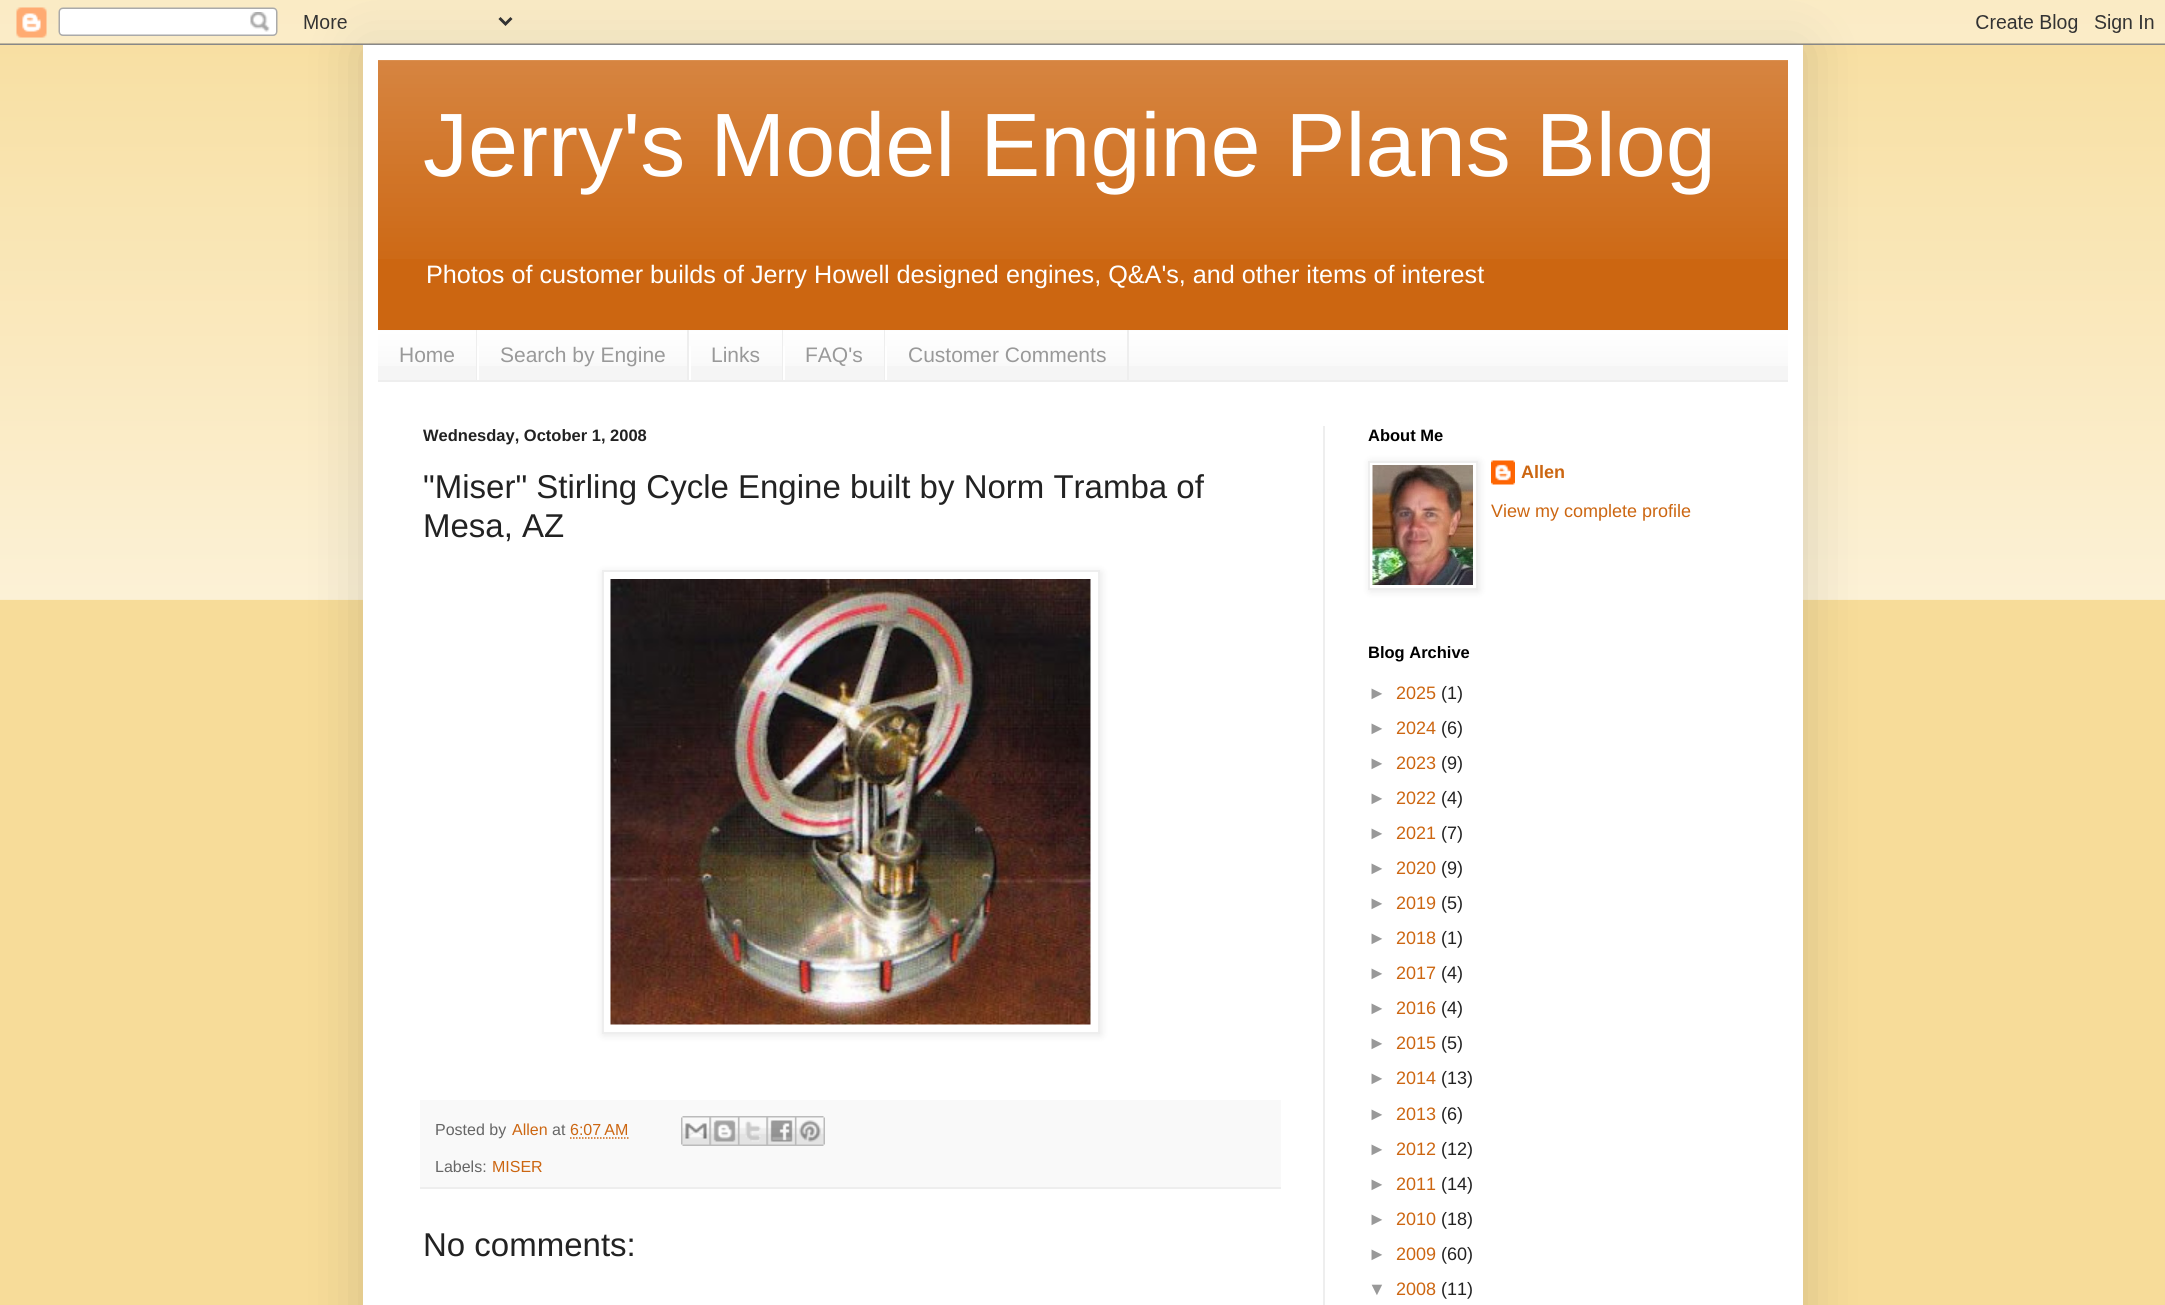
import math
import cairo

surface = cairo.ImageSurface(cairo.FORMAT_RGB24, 2165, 1305)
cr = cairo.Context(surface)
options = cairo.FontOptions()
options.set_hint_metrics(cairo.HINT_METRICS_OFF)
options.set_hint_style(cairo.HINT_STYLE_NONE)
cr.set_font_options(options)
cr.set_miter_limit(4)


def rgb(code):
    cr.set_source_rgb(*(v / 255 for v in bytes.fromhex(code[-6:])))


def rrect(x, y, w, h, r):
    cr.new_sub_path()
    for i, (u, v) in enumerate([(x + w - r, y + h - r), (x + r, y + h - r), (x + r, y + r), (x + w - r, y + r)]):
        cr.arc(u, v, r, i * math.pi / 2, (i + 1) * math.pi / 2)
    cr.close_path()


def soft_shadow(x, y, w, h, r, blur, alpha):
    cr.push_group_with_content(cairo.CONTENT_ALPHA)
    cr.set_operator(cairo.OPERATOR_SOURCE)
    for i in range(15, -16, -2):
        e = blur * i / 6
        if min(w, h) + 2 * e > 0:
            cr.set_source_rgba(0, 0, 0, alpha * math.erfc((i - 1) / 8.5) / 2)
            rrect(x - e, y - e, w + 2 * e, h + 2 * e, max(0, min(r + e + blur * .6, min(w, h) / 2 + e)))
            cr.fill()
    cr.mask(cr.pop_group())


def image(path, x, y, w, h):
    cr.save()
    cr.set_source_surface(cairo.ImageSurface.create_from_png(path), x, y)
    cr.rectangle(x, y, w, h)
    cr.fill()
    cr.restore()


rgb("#f7dc99")
cr.paint()
image("img/1.png", 0, 0, 2165, 600)
rgb("#000000")
soft_shadow(363, 45, 1440, 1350, 0, 30, 0.15)
image("img/2.png", 0, 0, 2165, 45)
rgb("#ffffff")
cr.rectangle(363, 45, 1440, 1260)
cr.fill()
rgb("#cc6611")
cr.rectangle(378, 60, 1410, 270)
cr.fill()
image("img/3.png", 378, 60, 1410, 199)
rgb("#f5f5f5")
cr.rectangle(378, 330, 1410, 50)
cr.fill()
image("img/4.png", 378, 330, 1410, 36)
for x, y, w, h, color in [
    (378, 380, 1410, 2, "#eeeeee"),
    (476, 330, 1, 50, "#eeeeee"),
    (687, 330, 2, 50, "#eeeeee"),
    (477, 346, 2, 34, "#ffffff"),
    (782, 330, 1, 50, "#eeeeee"),
    (689, 346, 2, 34, "#ffffff"),
    (884, 330, 1, 50, "#eeeeee"),
    (783, 346, 2, 34, "#ffffff"),
    (1127, 330, 2, 50, "#eeeeee"),
    (885, 346, 2, 34, "#ffffff"),
    (1323, 426, 2, 879, "#eeeeee"),
]:
    rgb(color)
    cr.rectangle(x, y, w, h)
    cr.fill()
rgb("#000000")
soft_shadow(603, 572, 498, 463, 0, 4, 0.1)
rgb("#ffffff")
cr.rectangle(603, 571, 496, 462)
cr.fill_preserve()
rgb("#eeeeee")
cr.stroke()
image("img/5.png", 610, 579, 481, 446)
rgb("#f9f9f9")
cr.rectangle(420, 1100, 861, 87)
cr.fill()
rgb("#eeeeee")
cr.rectangle(420, 1187, 861, 2)
cr.fill()
cr.new_path()
cr.move_to(570, 1138)
cr.line_to(629, 1138)
rgb("#cc6611")
cr.set_line_width(1.5)
cr.set_dash([1.5, 1.5])
cr.stroke()
image("img/6.png", 681, 1116, 29, 30)
image("img/7.png", 709, 1116, 29, 30)
image("img/8.png", 738, 1116, 29, 30)
image("img/9.png", 766, 1116, 29, 30)
image("img/10.png", 795, 1116, 30, 30)
image("img/12.png", 1491, 460, 24, 25)
rgb("#000000")
soft_shadow(1370, 462, 109, 129, 0, 4, 0.1)
rgb("#ffffff")
cr.rectangle(1369, 462, 108, 127)
cr.fill_preserve()
rgb("#eeeeee")
cr.set_line_width(2)
cr.set_dash([])
cr.stroke()
image("img/11.png", 1372, 465, 101, 120)
cr.select_font_face("Liberation Sans")
cr.set_font_size(90)
rgb("#ffffff")
cr.move_to(423, 176)
cr.show_text("Jerry's Model Engine Plans Blog")
cr.set_font_size(25.2)
cr.move_to(426, 283)
cr.show_text("Photos of customer builds of Jerry Howell designed engines, Q&A's, and other items of interest")
cr.set_font_size(21)
rgb("#999999")
for x, y, s in [
    (399, 362, "Home"),
    (500, 362, "Search by Engine"),
    (711, 362, "Links"),
    (805, 362, "FAQ's"),
    (908, 362, "Customer Comments"),
]:
    cr.move_to(x, y)
    cr.show_text(s)
cr.select_font_face("Liberation Sans", cairo.FONT_SLANT_NORMAL, cairo.FONT_WEIGHT_BOLD)
cr.set_font_size(16.5)
rgb("#222222")
cr.move_to(423, 441)
cr.show_text("Wednesday, October 1, 2008")
cr.select_font_face("Liberation Sans")
cr.set_font_size(33)
cr.move_to(423, 498)
cr.show_text("\"Miser\" Stirling Cycle Engine built by Norm Tramba of")
cr.move_to(423, 537)
cr.show_text("Mesa, AZ")
cr.set_font_size(16)
rgb("#666666")
cr.move_to(435, 1135)
cr.show_text("Posted by")
rgb("#cc6611")
cr.move_to(512, 1135)
cr.show_text("Allen")
rgb("#666666")
cr.move_to(552, 1135)
cr.show_text("at")
rgb("#cc6611")
cr.move_to(570, 1135)
cr.show_text("6:07 AM")
rgb("#666666")
cr.move_to(435, 1172)
cr.show_text("Labels:")
rgb("#cc6611")
cr.move_to(492, 1172)
cr.show_text("MISER")
cr.set_font_size(33)
rgb("#222222")
cr.move_to(423, 1256)
cr.show_text("No comments:")
cr.select_font_face("Liberation Sans", cairo.FONT_SLANT_NORMAL, cairo.FONT_WEIGHT_BOLD)
cr.set_font_size(16.5)
rgb("#000000")
cr.move_to(1368, 441)
cr.show_text("About Me")
cr.set_font_size(18)
rgb("#cc6611")
cr.move_to(1521, 478)
cr.show_text("Allen")
cr.select_font_face("Liberation Sans")
cr.move_to(1491, 517)
cr.show_text("View my complete profile")
cr.select_font_face("Liberation Sans", cairo.FONT_SLANT_NORMAL, cairo.FONT_WEIGHT_BOLD)
cr.set_font_size(16.5)
rgb("#000000")
cr.move_to(1368, 658)
cr.show_text("Blog Archive")
cr.select_font_face("Liberation Sans")
cr.set_font_size(18)
rgb("#999999")
cr.move_to(1368, 699)
cr.show_text("►")
rgb("#cc6611")
cr.move_to(1396, 699)
cr.show_text("2025")
rgb("#222222")
cr.move_to(1441, 699)
cr.show_text("(1)")
rgb("#999999")
cr.move_to(1368, 734)
cr.show_text("►")
rgb("#cc6611")
cr.move_to(1396, 734)
cr.show_text("2024")
rgb("#222222")
cr.move_to(1441, 734)
cr.show_text("(6)")
rgb("#999999")
cr.move_to(1368, 769)
cr.show_text("►")
rgb("#cc6611")
cr.move_to(1396, 769)
cr.show_text("2023")
rgb("#222222")
cr.move_to(1441, 769)
cr.show_text("(9)")
rgb("#999999")
cr.move_to(1368, 804)
cr.show_text("►")
rgb("#cc6611")
cr.move_to(1396, 804)
cr.show_text("2022")
rgb("#222222")
cr.move_to(1441, 804)
cr.show_text("(4)")
rgb("#999999")
cr.move_to(1368, 839)
cr.show_text("►")
rgb("#cc6611")
cr.move_to(1396, 839)
cr.show_text("2021")
rgb("#222222")
cr.move_to(1441, 839)
cr.show_text("(7)")
rgb("#999999")
cr.move_to(1368, 874)
cr.show_text("►")
rgb("#cc6611")
cr.move_to(1396, 874)
cr.show_text("2020")
rgb("#222222")
cr.move_to(1441, 874)
cr.show_text("(9)")
rgb("#999999")
cr.move_to(1368, 909)
cr.show_text("►")
rgb("#cc6611")
cr.move_to(1396, 909)
cr.show_text("2019")
rgb("#222222")
cr.move_to(1441, 909)
cr.show_text("(5)")
rgb("#999999")
cr.move_to(1368, 944)
cr.show_text("►")
rgb("#cc6611")
cr.move_to(1396, 944)
cr.show_text("2018")
rgb("#222222")
cr.move_to(1441, 944)
cr.show_text("(1)")
rgb("#999999")
cr.move_to(1368, 979)
cr.show_text("►")
rgb("#cc6611")
cr.move_to(1396, 979)
cr.show_text("2017")
rgb("#222222")
cr.move_to(1441, 979)
cr.show_text("(4)")
rgb("#999999")
cr.move_to(1368, 1014)
cr.show_text("►")
rgb("#cc6611")
cr.move_to(1396, 1014)
cr.show_text("2016")
rgb("#222222")
cr.move_to(1441, 1014)
cr.show_text("(4)")
rgb("#999999")
cr.move_to(1368, 1049)
cr.show_text("►")
rgb("#cc6611")
cr.move_to(1396, 1049)
cr.show_text("2015")
rgb("#222222")
cr.move_to(1441, 1049)
cr.show_text("(5)")
rgb("#999999")
cr.move_to(1368, 1084)
cr.show_text("►")
rgb("#cc6611")
cr.move_to(1396, 1084)
cr.show_text("2014")
rgb("#222222")
cr.move_to(1441, 1084)
cr.show_text("(13)")
rgb("#999999")
cr.move_to(1368, 1120)
cr.show_text("►")
rgb("#cc6611")
cr.move_to(1396, 1120)
cr.show_text("2013")
rgb("#222222")
cr.move_to(1441, 1120)
cr.show_text("(6)")
rgb("#999999")
cr.move_to(1368, 1155)
cr.show_text("►")
rgb("#cc6611")
cr.move_to(1396, 1155)
cr.show_text("2012")
rgb("#222222")
cr.move_to(1441, 1155)
cr.show_text("(12)")
rgb("#999999")
cr.move_to(1368, 1190)
cr.show_text("►")
rgb("#cc6611")
cr.move_to(1396, 1190)
cr.show_text("2011")
rgb("#222222")
cr.move_to(1441, 1190)
cr.show_text("(14)")
rgb("#999999")
cr.move_to(1368, 1225)
cr.show_text("►")
rgb("#cc6611")
cr.move_to(1396, 1225)
cr.show_text("2010")
rgb("#222222")
cr.move_to(1441, 1225)
cr.show_text("(18)")
rgb("#999999")
cr.move_to(1368, 1260)
cr.show_text("►")
rgb("#cc6611")
cr.move_to(1396, 1260)
cr.show_text("2009")
rgb("#222222")
cr.move_to(1441, 1260)
cr.show_text("(60)")
rgb("#999999")
cr.move_to(1368, 1295)
cr.show_text("▼")
rgb("#cc6611")
cr.move_to(1396, 1295)
cr.show_text("2008")
rgb("#222222")
cr.move_to(1441, 1295)
cr.show_text("(11)")
surface.write_to_png("page.png")
